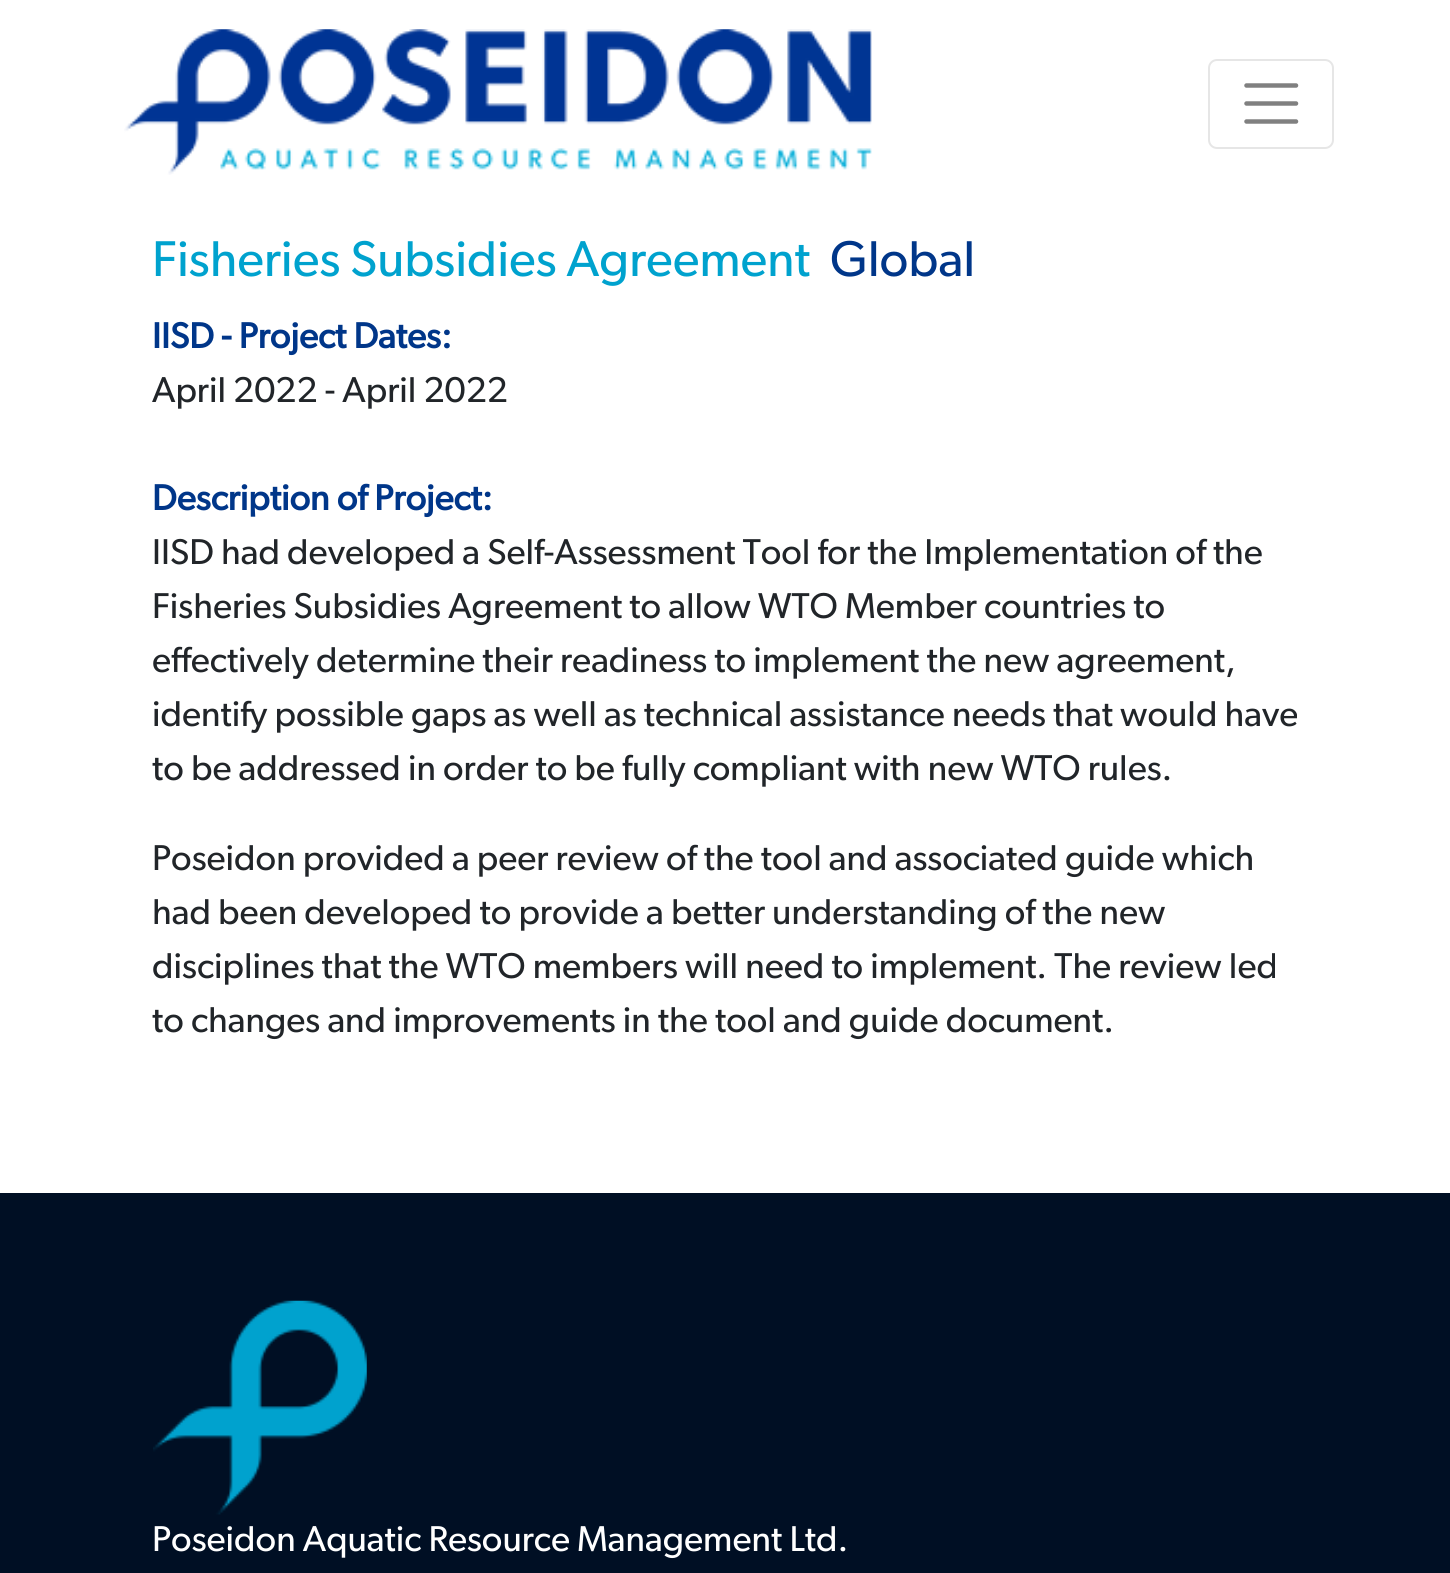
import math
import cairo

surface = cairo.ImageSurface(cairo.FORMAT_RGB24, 1450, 1573)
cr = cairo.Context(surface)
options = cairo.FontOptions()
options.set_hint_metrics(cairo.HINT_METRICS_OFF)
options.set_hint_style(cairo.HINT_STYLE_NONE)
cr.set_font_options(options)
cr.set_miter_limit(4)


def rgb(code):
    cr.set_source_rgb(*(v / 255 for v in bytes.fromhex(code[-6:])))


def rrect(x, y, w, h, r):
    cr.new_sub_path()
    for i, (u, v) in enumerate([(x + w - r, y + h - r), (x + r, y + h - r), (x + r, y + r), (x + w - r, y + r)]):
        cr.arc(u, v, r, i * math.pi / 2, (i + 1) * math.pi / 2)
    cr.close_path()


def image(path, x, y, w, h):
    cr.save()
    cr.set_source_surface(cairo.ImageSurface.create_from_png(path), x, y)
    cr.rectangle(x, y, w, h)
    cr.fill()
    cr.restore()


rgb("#ffffff")
cr.paint()
image("img/1.png", 124, 29, 748, 146)
rrect(1209, 60, 124, 88, 8)
rgb("#e6e6e6")
cr.stroke()
cr.new_path()
cr.move_to(1246.5, 85.5)
cr.line_to(1296, 85.5)
cr.move_to(1246.5, 103.5)
cr.line_to(1296, 103.5)
cr.move_to(1246.5, 121.5)
cr.line_to(1296, 121.5)
rgb("#808080")
cr.set_line_width(4.5)
cr.set_line_cap(cairo.LINE_CAP_ROUND)
cr.stroke()
rgb("#000f24")
cr.rectangle(0, 1193, 1450, 380)
cr.fill()
image("img/2.png", 153, 1300, 214, 215)
cr.select_font_face("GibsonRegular")
cr.set_font_size(50.4)
rgb("#00a2ce")
cr.move_to(152, 276)
cr.show_text("Fisheries Subsidies Agreement")
rgb("#003689")
cr.move_to(830, 276)
cr.show_text("Global")
cr.select_font_face("GibsonRegular", cairo.FONT_SLANT_NORMAL, cairo.FONT_WEIGHT_BOLD)
cr.set_font_size(36)
cr.move_to(152, 348)
cr.show_text("IISD - Project Dates:")
cr.select_font_face("GibsonRegular")
rgb("#212529")
cr.move_to(152, 402)
cr.show_text("April 2022 - April 2022")
cr.select_font_face("GibsonRegular", cairo.FONT_SLANT_NORMAL, cairo.FONT_WEIGHT_BOLD)
rgb("#003689")
cr.move_to(152, 510)
cr.show_text("Description of Project:")
cr.select_font_face("GibsonRegular")
rgb("#212529")
for x, y, s in [
    (152, 564, "IISD had developed a Self-Assessment Tool for the Implementation of the"),
    (152, 618, "Fisheries Subsidies Agreement to allow WTO Member countries to"),
    (152, 672, "effectively determine their readiness to implement the new agreement,"),
    (152, 726, "identify possible gaps as well as technical assistance needs that would have"),
    (152, 780, "to be addressed in order to be fully compliant with new WTO rules."),
    (152, 870, "Poseidon provided a peer review of the tool and associated guide which"),
    (152, 924, "had been developed to provide a better understanding of the new"),
    (152, 978, "disciplines that the WTO members will need to implement. The review led"),
    (152, 1032, "to changes and improvements in the tool and guide document."),
]:
    cr.move_to(x, y)
    cr.show_text(s)
rgb("#ffffff")
cr.move_to(152, 1551)
cr.show_text("Poseidon Aquatic Resource Management Ltd.")
surface.write_to_png("page.png")
